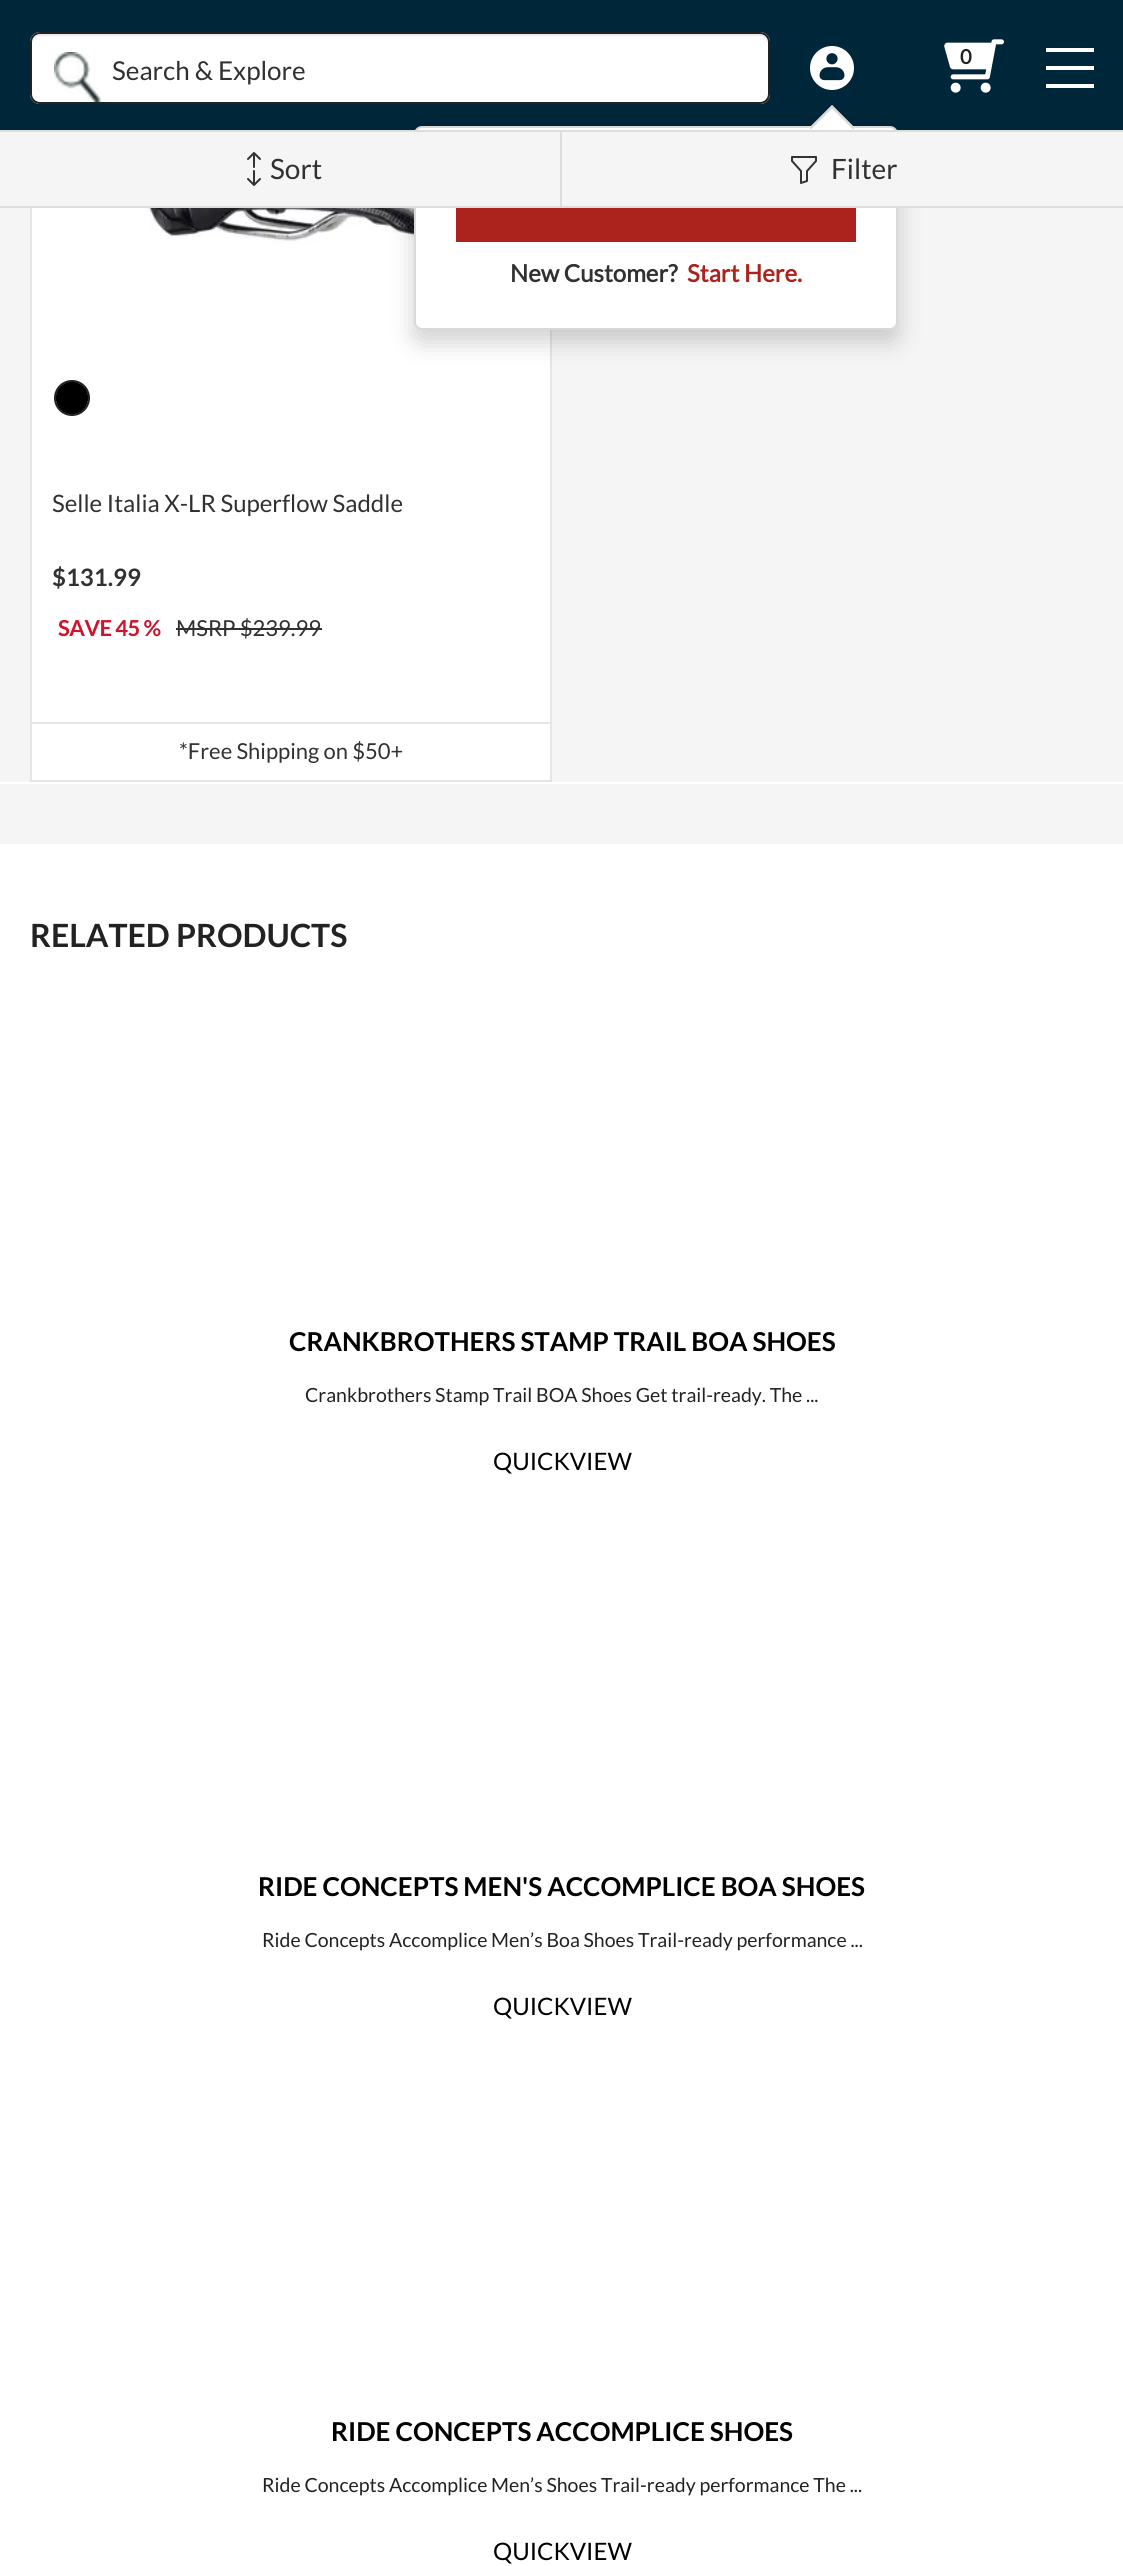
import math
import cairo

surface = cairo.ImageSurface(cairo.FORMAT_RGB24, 1123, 2566)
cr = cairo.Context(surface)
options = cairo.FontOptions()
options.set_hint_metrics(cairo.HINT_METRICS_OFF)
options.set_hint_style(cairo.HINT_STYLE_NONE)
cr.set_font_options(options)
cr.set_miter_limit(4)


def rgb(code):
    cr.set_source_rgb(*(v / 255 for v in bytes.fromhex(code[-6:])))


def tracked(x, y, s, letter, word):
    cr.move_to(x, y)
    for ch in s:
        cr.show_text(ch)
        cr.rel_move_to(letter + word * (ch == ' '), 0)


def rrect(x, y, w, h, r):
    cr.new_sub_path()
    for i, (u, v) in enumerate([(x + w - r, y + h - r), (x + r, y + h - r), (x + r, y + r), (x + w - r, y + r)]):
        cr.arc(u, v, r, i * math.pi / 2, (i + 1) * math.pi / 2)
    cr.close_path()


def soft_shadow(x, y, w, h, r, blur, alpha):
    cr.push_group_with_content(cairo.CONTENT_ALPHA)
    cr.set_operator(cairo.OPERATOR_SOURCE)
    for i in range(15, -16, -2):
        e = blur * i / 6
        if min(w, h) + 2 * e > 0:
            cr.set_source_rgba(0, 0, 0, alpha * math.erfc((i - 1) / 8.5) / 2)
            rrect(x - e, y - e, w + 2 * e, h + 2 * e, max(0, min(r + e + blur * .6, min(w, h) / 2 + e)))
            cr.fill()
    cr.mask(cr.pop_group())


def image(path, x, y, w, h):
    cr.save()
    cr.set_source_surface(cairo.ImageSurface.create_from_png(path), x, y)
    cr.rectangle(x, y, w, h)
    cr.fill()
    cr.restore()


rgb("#ffffff")
cr.paint()
rgb("#f5f5f5")
cr.rectangle(0, 208, 1123, 574)
cr.fill()
rgb("#ffffff")
cr.rectangle(32, 208, 518, 572)
cr.fill()
cr.rectangle(31, -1, 520, 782)
rgb("#e5e5e5")
cr.stroke()
rgb("#00263a")
cr.rectangle(0, 0, 1123, 130)
cr.fill()
image("img/1.png", 944, 39, 60, 54)
for x, y, w, h, color in [
    (1046, 48, 48, 4, "#ffffff"),
    (1046, 66, 48, 4, "#ffffff"),
    (1046, 84, 48, 4, "#ffffff"),
]:
    rgb(color)
    cr.rectangle(x, y, w, h)
    cr.fill()
rrect(30, 32, 740, 72, 10)
cr.fill()
rgb("#ececec")
cr.new_path()
cr.move_to(40, 36)
cr.line_to(760, 36)
cr.curve_to(764, 36, 768, 40, 768, 44)
cr.curve_to(768, 39, 766, 34, 760, 34)
cr.line_to(40, 34)
cr.curve_to(34, 34, 32, 39, 32, 44)
cr.curve_to(32, 40, 36, 36, 40, 36)
cr.close_path()
cr.fill()
rrect(31, 33, 738, 70, 9)
rgb("#222222")
cr.stroke()
image("img/2.png", 54, 52, 48, 50)
image("img/3.png", 810, 46, 44, 44)
image("img/7.png", 143, 208, 271, 35)
rgb("#000000")
soft_shadow(414, 138, 484, 204, 8, 12, 0.18)
rgb("#ffffff")
rrect(415, 127, 482, 202, 7)
cr.fill_preserve()
rgb("#d9d9d9")
cr.stroke()
rgb("#ffffff")
cr.new_path()
cr.move_to(855, 128)
cr.line_to(832, 151)
cr.line_to(809, 128)
cr.line_to(832, 105)
cr.close_path()
cr.fill()
rgb("#d9d9d9")
cr.new_path()
cr.move_to(833.5, 107)
cr.line_to(811, 129.5)
cr.line_to(809.5, 128)
cr.line_to(832, 105.5)
cr.close_path()
cr.fill()
cr.new_path()
cr.move_to(854.5, 128)
cr.line_to(853, 129.5)
cr.line_to(830.5, 107)
cr.line_to(832, 105.5)
cr.close_path()
cr.fill()
for x, y, w, h, color in [
    (456, 208, 400, 34, "#ab231c"),
    (0, 132, 560, 74, "#f5f5f5"),
    (0, 130, 1123, 2, "#dddddd"),
    (560, 130, 2, 78, "#dddddd"),
    (0, 206, 1123, 2, "#dddddd"),
]:
    rgb(color)
    cr.rectangle(x, y, w, h)
    cr.fill()
image("img/4.png", 247, 152, 14, 16)
image("img/5.png", 247, 170, 14, 16)
rgb("#f5f5f5")
cr.rectangle(562, 132, 561, 74)
cr.fill()
image("img/6.png", 791, 156, 26, 28)
cr.arc(72, 398, 17, 0, 2 * math.pi)
rgb("#222222")
cr.stroke()
image("img/8.png", 56, 382, 32, 32)
for x, y, w, h, color in [
    (176, 628, 146, 2, "#313131"),
    (32, 722, 518, 2, "#e5e5e5"),
    (0, 784, 1123, 60, "#f5f5f5"),
]:
    rgb(color)
    cr.rectangle(x, y, w, h)
    cr.fill()
cr.select_font_face("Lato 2", cairo.FONT_SLANT_NORMAL, cairo.FONT_WEIGHT_BOLD)
cr.set_font_size(20)
rgb("#222222")
cr.move_to(960, 64)
cr.show_text("0")
cr.select_font_face("Lato")
cr.set_font_size(26)
rgb("#313131")
cr.move_to(112, 80)
cr.show_text("Search & Explore")
cr.select_font_face("Lato 2", cairo.FONT_SLANT_NORMAL, cairo.FONT_WEIGHT_BOLD)
cr.set_font_size(24)
cr.move_to(510, 282)
cr.show_text("New Customer?")
rgb("#ab231c")
cr.move_to(687, 282)
cr.show_text("Start Here.")
cr.select_font_face("Lato")
cr.set_font_size(28)
rgb("#313131")
cr.move_to(270, 179)
cr.show_text("Sort")
cr.move_to(831, 179)
cr.show_text("Filter")
cr.set_font_size(24)
cr.move_to(52, 512)
cr.show_text("Selle Italia X-LR Superflow Saddle")
cr.select_font_face("Lato", cairo.FONT_SLANT_NORMAL, cairo.FONT_WEIGHT_BOLD)
cr.move_to(52, 586)
cr.show_text("$131.99")
cr.set_font_size(22)
rgb("#cf132c")
tracked(58, 636, "SAVE 45 %", -0.5, 0)
cr.select_font_face("Lato")
rgb("#313131")
cr.move_to(176, 636)
cr.show_text("MSRP $239.99")
cr.move_to(179, 759)
cr.show_text("*Free Shipping on $50+")
cr.select_font_face("Lato", cairo.FONT_SLANT_NORMAL, cairo.FONT_WEIGHT_BOLD)
cr.set_font_size(32)
rgb("#222222")
cr.move_to(30, 947)
cr.show_text("RELATED PRODUCTS")
cr.set_font_size(26)
rgb("#000000")
cr.move_to(289, 1351)
cr.show_text("CRANKBROTHERS STAMP TRAIL BOA SHOES")
cr.select_font_face("Lato")
cr.set_font_size(19.5)
rgb("#222222")
cr.move_to(305, 1402)
cr.show_text("Crankbrothers Stamp Trail BOA Shoes Get trail-ready. The ...")
cr.set_font_size(24)
rgb("#000000")
cr.move_to(493, 1470)
cr.show_text("QUICKVIEW")
cr.select_font_face("Lato", cairo.FONT_SLANT_NORMAL, cairo.FONT_WEIGHT_BOLD)
cr.set_font_size(26)
cr.move_to(258, 1896)
cr.show_text("RIDE CONCEPTS MEN'S ACCOMPLICE BOA SHOES")
cr.select_font_face("Lato")
cr.set_font_size(19.5)
rgb("#222222")
cr.move_to(262, 1947)
cr.show_text("Ride Concepts Accomplice Men’s Boa Shoes Trail-ready performance ...")
cr.set_font_size(24)
rgb("#000000")
cr.move_to(493, 2015)
cr.show_text("QUICKVIEW")
cr.select_font_face("Lato", cairo.FONT_SLANT_NORMAL, cairo.FONT_WEIGHT_BOLD)
cr.set_font_size(26)
cr.move_to(331, 2441)
cr.show_text("RIDE CONCEPTS ACCOMPLICE SHOES")
cr.select_font_face("Lato")
cr.set_font_size(19.5)
rgb("#222222")
cr.move_to(262, 2492)
cr.show_text("Ride Concepts Accomplice Men’s Shoes Trail-ready performance The ...")
cr.set_font_size(24)
rgb("#000000")
cr.move_to(493, 2560)
cr.show_text("QUICKVIEW")
surface.write_to_png("page.png")
